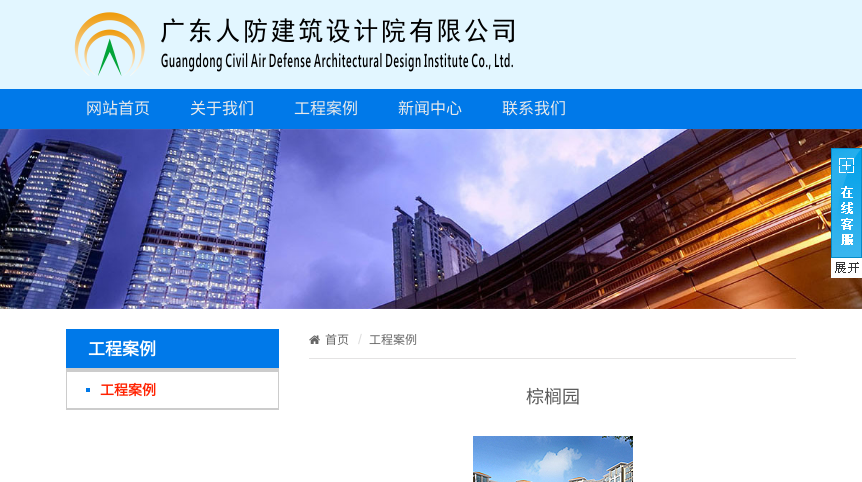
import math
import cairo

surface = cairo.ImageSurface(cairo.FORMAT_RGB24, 862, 482)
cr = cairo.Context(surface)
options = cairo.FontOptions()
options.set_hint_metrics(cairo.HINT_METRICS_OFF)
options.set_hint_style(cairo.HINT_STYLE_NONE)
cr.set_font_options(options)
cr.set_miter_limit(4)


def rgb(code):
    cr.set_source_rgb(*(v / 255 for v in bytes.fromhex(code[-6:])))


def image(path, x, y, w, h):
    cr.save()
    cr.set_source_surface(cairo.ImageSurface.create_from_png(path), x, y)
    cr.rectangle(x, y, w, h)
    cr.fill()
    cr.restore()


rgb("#ffffff")
cr.paint()
rgb("#e2f6ff")
cr.rectangle(0, 0, 862, 89)
cr.fill()
image("img/1.png", 74, 12, 440, 64)
rgb("#0079e9")
cr.rectangle(0, 89, 862, 40)
cr.fill()
image("img/2.png", 0, 129, 862, 180)
image("img/3.png", 831, 148, 31, 130)
cr.rectangle(66, 329, 213, 39)
cr.fill()
rgb("#cccccc")
cr.rectangle(66, 368, 213, 3)
cr.fill()
cr.rectangle(66.5, 371.5, 212, 38)
cr.set_line_width(1)
cr.stroke()
for x, y, w, h, color in [
    (67, 408, 211, 1, "#cccccc"),
    (86, 388, 4, 4, "#0079e9"),
    (309, 358, 487, 1, "#e4e3e3"),
]:
    rgb(color)
    cr.rectangle(x, y, w, h)
    cr.fill()
image("img/4.png", 309, 335, 11, 9)
image("img/5.png", 473, 436, 160, 46)
cr.select_font_face("Noto Sans CJK SC")
cr.set_font_size(16)
rgb("#eaeaea")
for x, y, s in [
    (86, 114, "网站首页"),
    (190, 114, "关于我们"),
    (294, 114, "工程案例"),
    (398, 114, "新闻中心"),
    (502, 114, "联系我们"),
]:
    cr.move_to(x, y)
    cr.show_text(s)
cr.select_font_face("Noto Sans CJK SC", cairo.FONT_SLANT_NORMAL, cairo.FONT_WEIGHT_BOLD)
cr.set_font_size(17)
rgb("#ffffff")
cr.move_to(88, 355)
cr.show_text("工程案例")
cr.set_font_size(14)
rgb("#ff2100")
cr.move_to(100, 395)
cr.show_text("工程案例")
cr.select_font_face("Noto Sans CJK SC")
cr.set_font_size(12)
rgb("#666666")
cr.move_to(325, 344)
cr.show_text("首页")
cr.select_font_face("Liberation Sans")
cr.set_font_size(14)
rgb("#dddddd")
cr.move_to(358, 344)
cr.show_text("/")
cr.select_font_face("Noto Sans CJK SC")
cr.set_font_size(12)
rgb("#666666")
cr.move_to(369, 344)
cr.show_text("工程案例")
cr.set_font_size(18)
rgb("#5a5a5a")
cr.move_to(526, 403)
cr.show_text("棕榈园")
surface.write_to_png("page.png")
